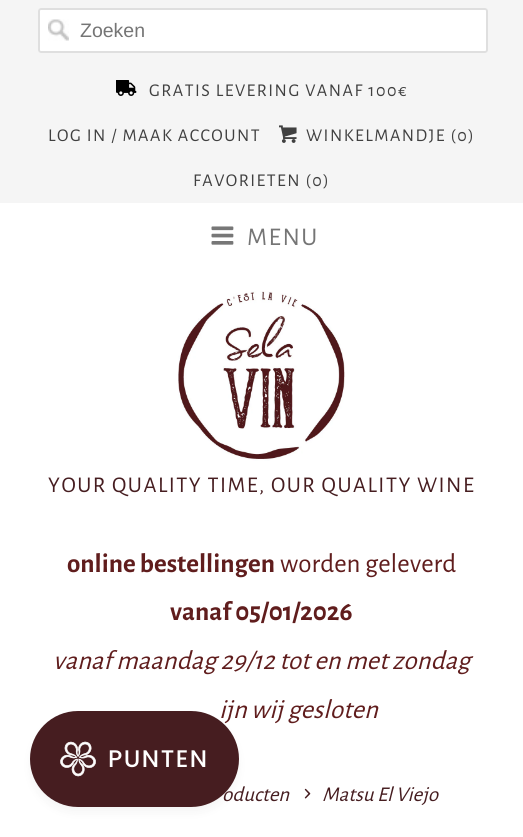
import math
import cairo

surface = cairo.ImageSurface(cairo.FORMAT_RGB24, 523, 837)
cr = cairo.Context(surface)
options = cairo.FontOptions()
options.set_hint_metrics(cairo.HINT_METRICS_OFF)
options.set_hint_style(cairo.HINT_STYLE_NONE)
cr.set_font_options(options)
cr.set_miter_limit(4)


def rgb(code):
    cr.set_source_rgb(*(v / 255 for v in bytes.fromhex(code[-6:])))


def tracked(x, y, s, letter, word):
    cr.move_to(x, y)
    for ch in s:
        cr.show_text(ch)
        cr.rel_move_to(letter + word * (ch == ' '), 0)


def rrect(x, y, w, h, r):
    cr.new_sub_path()
    for i, (u, v) in enumerate([(x + w - r, y + h - r), (x + r, y + h - r), (x + r, y + r), (x + w - r, y + r)]):
        cr.arc(u, v, r, i * math.pi / 2, (i + 1) * math.pi / 2)
    cr.close_path()


def soft_shadow(x, y, w, h, r, blur, alpha):
    cr.push_group_with_content(cairo.CONTENT_ALPHA)
    cr.set_operator(cairo.OPERATOR_SOURCE)
    for i in range(15, -16, -2):
        e = blur * i / 6
        if min(w, h) + 2 * e > 0:
            cr.set_source_rgba(0, 0, 0, alpha * math.erfc((i - 1) / 8.5) / 2)
            rrect(x - e, y - e, w + 2 * e, h + 2 * e, max(0, min(r + e + blur * .6, min(w, h) / 2 + e)))
            cr.fill()
    cr.mask(cr.pop_group())


def image(path, x, y, w, h):
    cr.save()
    cr.set_source_surface(cairo.ImageSurface.create_from_png(path), x, y)
    cr.rectangle(x, y, w, h)
    cr.fill()
    cr.restore()


rgb("#ffffff")
cr.paint()
rgb("#f5f5f5")
cr.rectangle(0, 0, 523, 203)
cr.fill()
rgb("#ffffff")
rrect(38, 8, 450, 45, 3)
cr.fill()
image("img/1.png", 48, 19, 21, 22)
rrect(39, 9, 448, 43, 2)
rgb("#dfdfdf")
cr.stroke()
image("img/2.png", 116, 80, 21, 16)
image("img/3.png", 279, 125, 18, 18)
image("img/4.png", 211, 226, 23, 19)
image("img/5.png", 178, 291, 167, 170)
rgb("#444444")
soft_shadow(33, 720, 203, 90, 45, 6, 0.08)
image("img/7.png", 304, 788, 7, 11)
cr.select_font_face("Liberation Sans")
cr.set_font_size(19.5)
rgb("#757575")
cr.move_to(80, 37)
cr.show_text("Zoeken")
cr.select_font_face("Alegreya Sans")
cr.set_font_size(18)
rgb("#404040")
for x, y, s in [
    (149, 96, "GRATIS LEVERING VANAF 100€"),
    (48, 141, "LOG IN / MAAK ACCOUNT"),
    (306, 141, "WINKELMANDJE (0)"),
    (193, 186, "FAVORIETEN (0)"),
]:
    tracked(x, y, s, 1.5, 0)
cr.set_font_size(25.5)
rgb("#757575")
tracked(247, 245, "MENU", 1.5, 0)
cr.set_font_size(22.5)
rgb("#461d20")
tracked(48, 492, "YOUR QUALITY TIME, OUR QUALITY WINE", 1.5, 0)
cr.select_font_face("Alegreya Sans", cairo.FONT_SLANT_NORMAL, cairo.FONT_WEIGHT_BOLD)
cr.set_font_size(27)
rgb("#601d1d")
cr.move_to(67, 572)
cr.show_text("online bestellingen")
cr.select_font_face("Alegreya Sans")
cr.move_to(280, 572)
cr.show_text("worden geleverd")
cr.select_font_face("Alegreya Sans", cairo.FONT_SLANT_NORMAL, cairo.FONT_WEIGHT_BOLD)
cr.move_to(170, 620)
cr.show_text("vanaf 05/01/2026")
cr.select_font_face("Alegreya Sans", cairo.FONT_SLANT_ITALIC)
cr.move_to(53, 669)
cr.show_text("vanaf maandag 29/12 tot en met zondag")
cr.move_to(219, 718)
cr.show_text("ijn wij gesloten")
rgb("#461d20")
rrect(30, 711, 209, 96, 48)
cr.fill()
image("img/6.png", 60, 741, 36, 36)
cr.select_font_face("Poppins Medium")
cr.set_font_size(24)
rgb("#ffffff")
tracked(108, 767, "PUNTEN", 1.5, 0)
cr.select_font_face("Alegreya Sans", cairo.FONT_SLANT_ITALIC)
cr.set_font_size(21)
rgb("#461d20")
cr.move_to(222, 801)
cr.show_text("oducten")
cr.move_to(322, 801)
cr.show_text("Matsu El Viejo")
surface.write_to_png("page.png")
